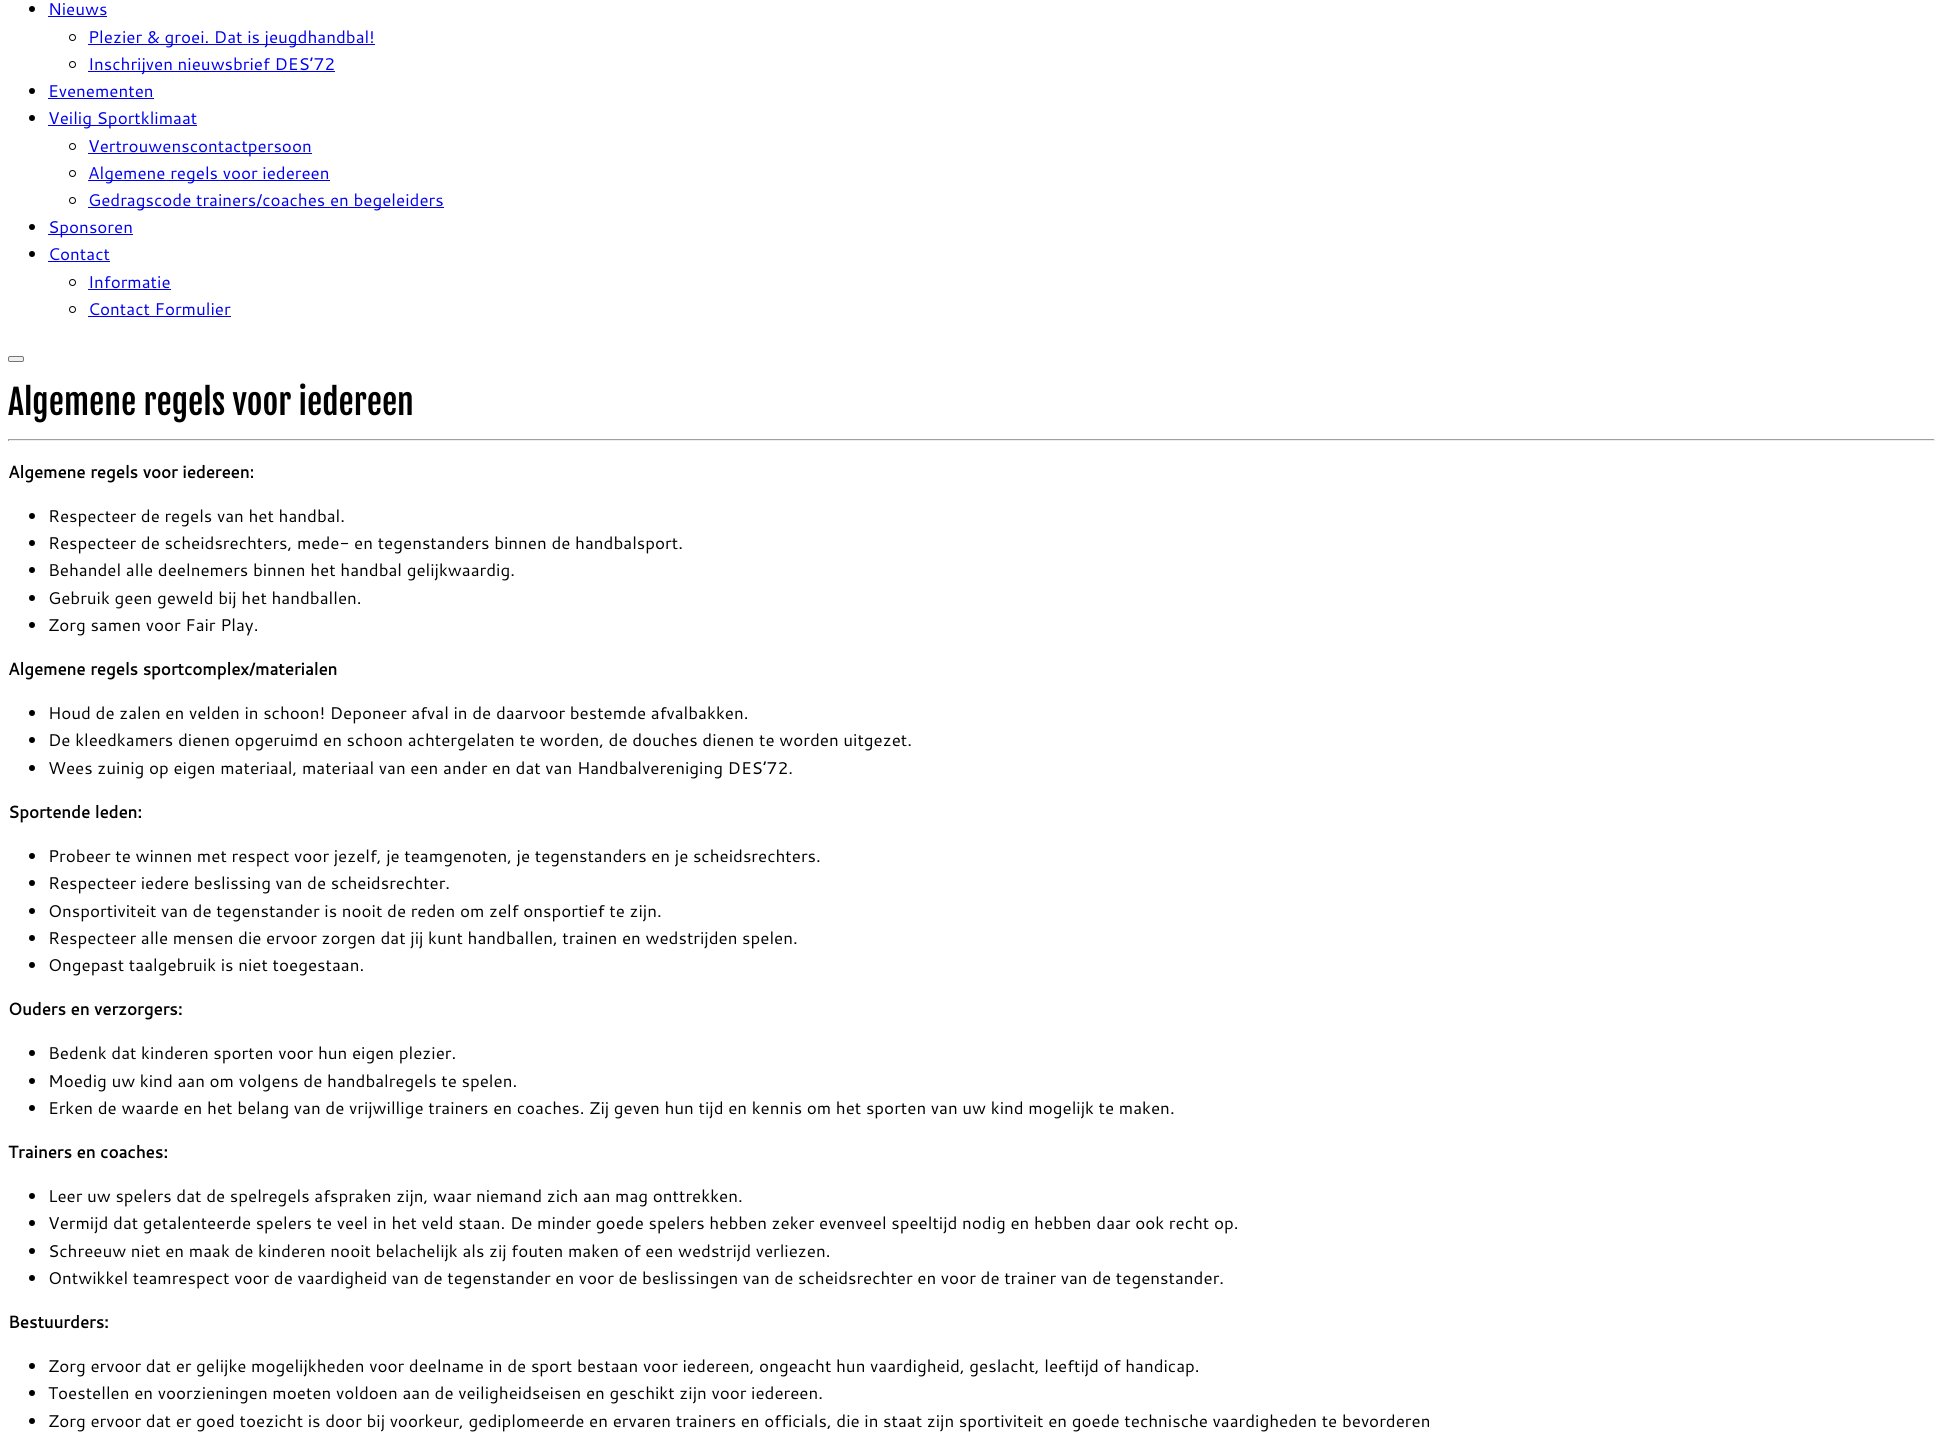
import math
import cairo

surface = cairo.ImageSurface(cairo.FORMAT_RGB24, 1943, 1447)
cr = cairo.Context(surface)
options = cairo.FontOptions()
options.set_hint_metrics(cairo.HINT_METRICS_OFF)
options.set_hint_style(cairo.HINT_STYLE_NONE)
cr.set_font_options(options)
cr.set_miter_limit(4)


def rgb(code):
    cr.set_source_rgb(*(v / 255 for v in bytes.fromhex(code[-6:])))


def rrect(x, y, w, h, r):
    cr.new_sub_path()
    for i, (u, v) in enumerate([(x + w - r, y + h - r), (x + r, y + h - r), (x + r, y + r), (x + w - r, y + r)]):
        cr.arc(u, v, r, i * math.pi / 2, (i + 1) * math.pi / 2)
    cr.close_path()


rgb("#ffffff")
cr.paint()
rgb("#000000")
cr.arc(32, 9, 3, 0, 2 * math.pi)
cr.fill()
rgb("#0000ee")
cr.rectangle(48, 16, 59, 1)
cr.fill()
cr.arc(72.5, 37.5, 3, 0, 2 * math.pi)
rgb("#000000")
cr.set_line_width(1)
cr.stroke()
rgb("#0000ee")
cr.rectangle(88, 44, 287, 1)
cr.fill()
cr.arc(72.5, 64.5, 3, 0, 2 * math.pi)
rgb("#000000")
cr.stroke()
rgb("#0000ee")
cr.rectangle(88, 71, 247, 1)
cr.fill()
rgb("#000000")
cr.arc(32, 91, 3, 0, 2 * math.pi)
cr.fill()
rgb("#0000ee")
cr.rectangle(48, 98, 106, 1)
cr.fill()
rgb("#000000")
cr.arc(32, 118, 3, 0, 2 * math.pi)
cr.fill()
rgb("#0000ee")
cr.rectangle(48, 125, 149, 1)
cr.fill()
cr.arc(72.5, 146.5, 3, 0, 2 * math.pi)
rgb("#000000")
cr.stroke()
rgb("#0000ee")
cr.rectangle(88, 153, 224, 1)
cr.fill()
cr.arc(72.5, 173.5, 3, 0, 2 * math.pi)
rgb("#000000")
cr.stroke()
rgb("#0000ee")
cr.rectangle(88, 180, 242, 1)
cr.fill()
cr.arc(72.5, 200.5, 3, 0, 2 * math.pi)
rgb("#000000")
cr.stroke()
rgb("#0000ee")
cr.rectangle(88, 207, 356, 1)
cr.fill()
rgb("#000000")
cr.arc(32, 227, 3, 0, 2 * math.pi)
cr.fill()
rgb("#0000ee")
cr.rectangle(48, 234, 85, 1)
cr.fill()
rgb("#000000")
cr.arc(32, 254, 3, 0, 2 * math.pi)
cr.fill()
rgb("#0000ee")
cr.rectangle(48, 261, 62, 1)
cr.fill()
cr.arc(72.5, 282.5, 3, 0, 2 * math.pi)
rgb("#000000")
cr.stroke()
rgb("#0000ee")
cr.rectangle(88, 289, 83, 1)
cr.fill()
cr.arc(72.5, 309.5, 3, 0, 2 * math.pi)
rgb("#000000")
cr.stroke()
rgb("#0000ee")
cr.rectangle(88, 316, 143, 1)
cr.fill()
rgb("#efefef")
rrect(8.5, 356.5, 15, 5, 1.5)
cr.fill_preserve()
rgb("#767676")
cr.stroke()
for x, y, w, h, color in [
    (8, 439, 1927, 1, "#9f9f9f"),
    (1934, 439, 1, 2, "#eeeeee"),
    (8, 440, 1927, 1, "#eeeeee"),
    (8, 439, 1, 2, "#9f9f9f"),
]:
    rgb(color)
    cr.rectangle(x, y, w, h)
    cr.fill()
rgb("#000000")
cr.arc(32, 516, 3, 0, 2 * math.pi)
cr.fill()
cr.arc(32, 543, 3, 0, 2 * math.pi)
cr.fill()
cr.arc(32, 570, 3, 0, 2 * math.pi)
cr.fill()
cr.arc(32, 598, 3, 0, 2 * math.pi)
cr.fill()
cr.arc(32, 625, 3, 0, 2 * math.pi)
cr.fill()
cr.arc(32, 713, 3, 0, 2 * math.pi)
cr.fill()
cr.arc(32, 740, 3, 0, 2 * math.pi)
cr.fill()
cr.arc(32, 768, 3, 0, 2 * math.pi)
cr.fill()
cr.arc(32, 856, 3, 0, 2 * math.pi)
cr.fill()
cr.arc(32, 883, 3, 0, 2 * math.pi)
cr.fill()
cr.arc(32, 911, 3, 0, 2 * math.pi)
cr.fill()
cr.arc(32, 938, 3, 0, 2 * math.pi)
cr.fill()
cr.arc(32, 965, 3, 0, 2 * math.pi)
cr.fill()
cr.arc(32, 1053, 3, 0, 2 * math.pi)
cr.fill()
cr.arc(32, 1081, 3, 0, 2 * math.pi)
cr.fill()
cr.arc(32, 1108, 3, 0, 2 * math.pi)
cr.fill()
cr.arc(32, 1196, 3, 0, 2 * math.pi)
cr.fill()
cr.arc(32, 1223, 3, 0, 2 * math.pi)
cr.fill()
cr.arc(32, 1251, 3, 0, 2 * math.pi)
cr.fill()
cr.arc(32, 1278, 3, 0, 2 * math.pi)
cr.fill()
cr.arc(32, 1366, 3, 0, 2 * math.pi)
cr.fill()
cr.arc(32, 1393, 3, 0, 2 * math.pi)
cr.fill()
cr.arc(32, 1421, 3, 0, 2 * math.pi)
cr.fill()
cr.select_font_face("Cantarell")
cr.set_font_size(17)
rgb("#0000ee")
for x, y, s in [
    (48, 15, "Nieuws"),
    (88, 43, "Plezier & groei. Dat is jeugdhandbal!"),
    (88, 70, "Inschrijven nieuwsbrief DES’72"),
    (48, 97, "Evenementen"),
    (48, 124, "Veilig Sportklimaat"),
    (88, 152, "Vertrouwenscontactpersoon"),
    (88, 179, "Algemene regels voor iedereen"),
    (88, 206, "Gedragscode trainers/coaches en begeleiders"),
    (48, 233, "Sponsoren"),
    (48, 260, "Contact"),
    (88, 288, "Informatie"),
    (88, 315, "Contact Formulier"),
]:
    cr.move_to(x, y)
    cr.show_text(s)
cr.select_font_face("Fjalla One")
cr.set_font_size(34)
rgb("#000000")
cr.move_to(8, 415)
cr.show_text("Algemene regels voor iedereen")
cr.select_font_face("Cantarell", cairo.FONT_SLANT_NORMAL, cairo.FONT_WEIGHT_BOLD)
cr.set_font_size(17)
cr.move_to(8, 478)
cr.show_text("Algemene regels voor iedereen:")
cr.select_font_face("Cantarell")
for x, y, s in [
    (48, 522, "Respecteer de regels van het handbal."),
    (48, 549, "Respecteer de scheidsrechters, mede- en tegenstanders binnen de handbalsport."),
    (48, 576, "Behandel alle deelnemers binnen het handbal gelijkwaardig."),
    (48, 604, "Gebruik geen geweld bij het handballen."),
    (48, 631, "Zorg samen voor Fair Play."),
]:
    cr.move_to(x, y)
    cr.show_text(s)
cr.select_font_face("Cantarell", cairo.FONT_SLANT_NORMAL, cairo.FONT_WEIGHT_BOLD)
cr.move_to(8, 675)
cr.show_text("Algemene regels sportcomplex/materialen")
cr.select_font_face("Cantarell")
for x, y, s in [
    (48, 719, "Houd de zalen en velden in schoon! Deponeer afval in de daarvoor bestemde afvalbakken."),
    (48, 746, "De kleedkamers dienen opgeruimd en schoon achtergelaten te worden, de douches dienen te worden uitgezet."),
    (48, 774, "Wees zuinig op eigen materiaal, materiaal van een ander en dat van Handbalvereniging DES’72."),
]:
    cr.move_to(x, y)
    cr.show_text(s)
cr.select_font_face("Cantarell", cairo.FONT_SLANT_NORMAL, cairo.FONT_WEIGHT_BOLD)
cr.move_to(8, 818)
cr.show_text("Sportende leden:")
cr.select_font_face("Cantarell")
for x, y, s in [
    (48, 862, "Probeer te winnen met respect voor jezelf, je teamgenoten, je tegenstanders en je scheidsrechters."),
    (48, 889, "Respecteer iedere beslissing van de scheidsrechter."),
    (48, 917, "Onsportiviteit van de tegenstander is nooit de reden om zelf onsportief te zijn."),
    (48, 944, "Respecteer alle mensen die ervoor zorgen dat jij kunt handballen, trainen en wedstrijden spelen."),
    (48, 971, "Ongepast taalgebruik is niet toegestaan."),
]:
    cr.move_to(x, y)
    cr.show_text(s)
cr.select_font_face("Cantarell", cairo.FONT_SLANT_NORMAL, cairo.FONT_WEIGHT_BOLD)
cr.move_to(8, 1015)
cr.show_text("Ouders en verzorgers:")
cr.select_font_face("Cantarell")
for x, y, s in [
    (48, 1059, "Bedenk dat kinderen sporten voor hun eigen plezier."),
    (48, 1087, "Moedig uw kind aan om volgens de handbalregels te spelen."),
    (48, 1114, "Erken de waarde en het belang van de vrijwillige trainers en coaches. Zij geven hun tijd en kennis om het sporten van uw kind mogelijk te maken."),
]:
    cr.move_to(x, y)
    cr.show_text(s)
cr.select_font_face("Cantarell", cairo.FONT_SLANT_NORMAL, cairo.FONT_WEIGHT_BOLD)
cr.move_to(8, 1158)
cr.show_text("Trainers en coaches:")
cr.select_font_face("Cantarell")
for x, y, s in [
    (48, 1202, "Leer uw spelers dat de spelregels afspraken zijn, waar niemand zich aan mag onttrekken."),
    (48, 1229, "Vermijd dat getalenteerde spelers te veel in het veld staan. De minder goede spelers hebben zeker evenveel speeltijd nodig en hebben daar ook recht op."),
    (48, 1257, "Schreeuw niet en maak de kinderen nooit belachelijk als zij fouten maken of een wedstrijd verliezen."),
    (48, 1284, "Ontwikkel teamrespect voor de vaardigheid van de tegenstander en voor de beslissingen van de scheidsrechter en voor de trainer van de tegenstander."),
]:
    cr.move_to(x, y)
    cr.show_text(s)
cr.select_font_face("Cantarell", cairo.FONT_SLANT_NORMAL, cairo.FONT_WEIGHT_BOLD)
cr.move_to(8, 1328)
cr.show_text("Bestuurders:")
cr.select_font_face("Cantarell")
for x, y, s in [
    (48, 1372, "Zorg ervoor dat er gelijke mogelijkheden voor deelname in de sport bestaan voor iedereen, ongeacht hun vaardigheid, geslacht, leeftijd of handicap."),
    (48, 1399, "Toestellen en voorzieningen moeten voldoen aan de veiligheidseisen en geschikt zijn voor iedereen."),
    (48, 1427, "Zorg ervoor dat er goed toezicht is door bij voorkeur, gediplomeerde en ervaren trainers en officials, die in staat zijn sportiviteit en goede technische vaardigheden te bevorderen"),
]:
    cr.move_to(x, y)
    cr.show_text(s)
surface.write_to_png("page.png")
